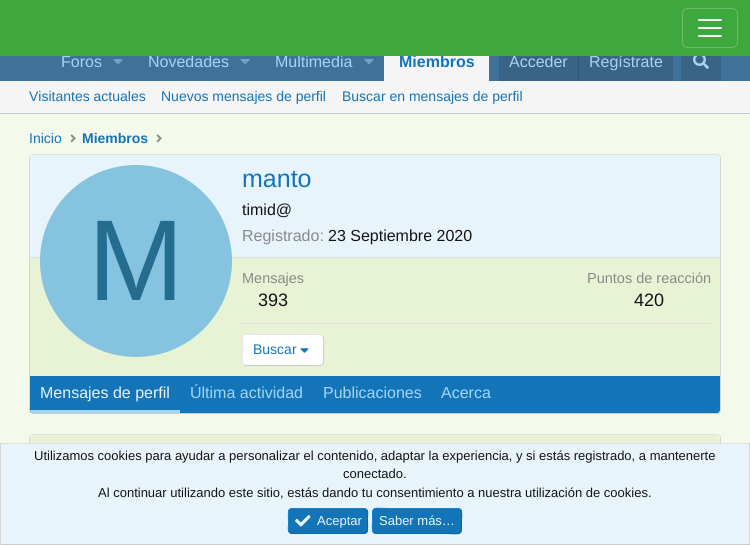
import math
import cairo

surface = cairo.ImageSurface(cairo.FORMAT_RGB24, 750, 545)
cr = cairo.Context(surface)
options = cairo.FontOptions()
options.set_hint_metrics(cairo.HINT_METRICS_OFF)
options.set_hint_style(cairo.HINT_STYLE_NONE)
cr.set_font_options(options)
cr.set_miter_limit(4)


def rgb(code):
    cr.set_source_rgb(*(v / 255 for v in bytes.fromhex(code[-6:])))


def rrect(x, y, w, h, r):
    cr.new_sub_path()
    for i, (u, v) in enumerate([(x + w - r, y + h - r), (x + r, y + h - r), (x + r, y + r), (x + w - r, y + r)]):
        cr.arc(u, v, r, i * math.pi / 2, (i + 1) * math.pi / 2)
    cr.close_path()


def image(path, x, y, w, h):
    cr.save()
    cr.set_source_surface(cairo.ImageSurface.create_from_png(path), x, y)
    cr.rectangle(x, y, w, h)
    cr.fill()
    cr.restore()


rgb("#f3f9eb")
cr.paint()
rgb("#3f729b")
cr.rectangle(0, 56, 750, 25)
cr.fill()
image("img/2.png", 113, 59, 10, 5)
image("img/2.png", 240, 59, 10, 5)
image("img/2.png", 364, 59, 10, 5)
for x, y, w, h, color in [
    (384, 56, 105, 25, "#f5f5f5"),
    (499, 56, 174, 25, "#396487"),
    (578, 56, 1, 25, "#335876"),
    (681, 56, 40, 25, "#396487"),
]:
    rgb(color)
    cr.rectangle(x, y, w, h)
    cr.fill()
image("img/3.png", 693, 56, 16, 13)
rgb("#f5f5f5")
cr.rectangle(0, 81, 750, 32)
cr.fill()
rgb("#cccccc")
cr.rectangle(0, 113, 750, 1)
cr.fill()
image("img/4.png", 70, 134, 6, 9)
image("img/4.png", 156, 134, 6, 9)
rgb("#ffffff")
rrect(29, 154, 692, 260, 4)
cr.fill()
cr.new_path()
cr.move_to(30.5, 155.5)
cr.line_to(33, 154.5)
cr.line_to(717, 154.5)
cr.line_to(719.5, 155.5)
rgb("#e0e0e0")
cr.set_line_width(1)
cr.stroke()
cr.new_path()
cr.move_to(719.5, 155.5)
cr.curve_to(720, 156, 720.5, 157, 720.5, 158)
cr.line_to(720.5, 410)
cr.curve_to(720.5, 411, 720, 412, 719.5, 412.5)
rgb("#d6d6d6")
cr.stroke()
cr.new_path()
cr.move_to(719.5, 412.5)
cr.line_to(717, 413.5)
cr.line_to(33, 413.5)
cr.line_to(30.5, 412.5)
rgb("#cccccc")
cr.stroke()
cr.new_path()
cr.move_to(30.5, 412.5)
cr.curve_to(30, 412, 29.5, 411, 29.5, 410)
cr.line_to(29.5, 158)
cr.curve_to(29.5, 157, 30, 156, 30.5, 155.5)
rgb("#d6d6d6")
cr.stroke()
rgb("#e8f3d6")
cr.new_path()
cr.move_to(33, 155)
cr.line_to(717, 155)
cr.curve_to(718.5, 155, 720, 156.5, 720, 158)
cr.line_to(720, 376)
cr.line_to(30, 376)
cr.line_to(30, 158)
cr.curve_to(30, 156.5, 31.5, 155, 33, 155)
cr.close_path()
cr.fill()
rgb("#e8f4fc")
cr.new_path()
cr.move_to(33, 155)
cr.line_to(717, 155)
cr.curve_to(718.5, 155, 720, 156.5, 720, 158)
cr.line_to(720, 258)
cr.line_to(30, 258)
cr.line_to(30, 158)
cr.curve_to(30, 156.5, 31.5, 155, 33, 155)
cr.close_path()
cr.fill()
rgb("#e0e0e0")
cr.rectangle(30, 257, 690, 1)
cr.fill()
rgb("#85c3e0")
cr.arc(136, 261, 96, 0, 2 * math.pi)
cr.fill()
rgb("#e0e0e0")
cr.rectangle(242, 323, 468, 1)
cr.fill()
rgb("#ffffff")
rrect(242, 334, 82, 32, 4)
cr.fill()
cr.new_path()
cr.move_to(322.5, 335.5)
cr.curve_to(324.5, 338, 323.5, 347, 323.5, 350)
cr.curve_to(323.5, 368, 326, 365.5, 307.5, 365.5)
cr.line_to(246, 365.5)
cr.line_to(243.5, 364.5)
rgb("#c9c9c9")
cr.stroke()
cr.new_path()
cr.move_to(243.5, 364.5)
cr.curve_to(241.5, 362, 242.5, 353, 242.5, 350)
cr.curve_to(242.5, 332, 240, 334.5, 258.5, 334.5)
cr.line_to(320, 334.5)
cr.line_to(322.5, 335.5)
rgb("#e3e3e3")
cr.stroke()
image("img/5.png", 300, 348, 9, 5)
rgb("#1474b8")
cr.new_path()
cr.move_to(30, 376)
cr.line_to(720, 376)
cr.line_to(720, 410)
cr.curve_to(720, 411.5, 718.5, 413, 717, 413)
cr.line_to(33, 413)
cr.curve_to(31.5, 413, 30, 411.5, 30, 410)
cr.close_path()
cr.fill()
rgb("#a3d4f5")
cr.new_path()
cr.move_to(30, 410)
cr.line_to(180, 410)
cr.line_to(180, 413)
cr.line_to(33, 413)
cr.curve_to(31.5, 413, 30, 411.5, 30, 410)
cr.close_path()
cr.fill()
rgb("#ffffff")
rrect(29, 434, 692, 37, 4)
cr.fill()
cr.new_path()
cr.move_to(30.5, 435.5)
cr.line_to(33, 434.5)
cr.line_to(717, 434.5)
cr.line_to(719.5, 435.5)
rgb("#e0e0e0")
cr.stroke()
cr.new_path()
cr.move_to(719.5, 435.5)
cr.curve_to(720, 436, 720.5, 437, 720.5, 438)
cr.line_to(720.5, 467)
cr.curve_to(720.5, 468, 720, 469, 719.5, 469.5)
rgb("#d6d6d6")
cr.stroke()
cr.new_path()
cr.move_to(30.5, 469.5)
cr.curve_to(30, 469, 29.5, 468, 29.5, 467)
cr.line_to(29.5, 438)
cr.curve_to(29.5, 437, 30, 436, 30.5, 435.5)
cr.stroke()
rgb("#e8f3d6")
rrect(30, 435, 690, 35, 3)
cr.fill()
for x, y, w, h, color in [
    (1, 444, 748, 100, "#e8f4fc"),
    (0, 443, 750, 1, "#e0e0e0"),
    (749, 443, 1, 102, "#d6d6d6"),
    (0, 544, 750, 1, "#cccccc"),
    (0, 443, 1, 102, "#d6d6d6"),
]:
    rgb(color)
    cr.rectangle(x, y, w, h)
    cr.fill()
rgb("#1474b8")
rrect(288, 508, 80, 26, 4)
cr.fill()
cr.new_path()
cr.move_to(366.5, 509.5)
cr.curve_to(368.5, 511.5, 367.5, 515.5, 367.5, 518)
cr.curve_to(367.5, 535.5, 370.5, 533.5, 352, 533.5)
cr.line_to(292, 533.5)
cr.line_to(289.5, 532.5)
rgb("#1265a1")
cr.stroke()
cr.new_path()
cr.move_to(289.5, 532.5)
cr.curve_to(287.5, 530.5, 288.5, 526.5, 288.5, 524)
cr.curve_to(288.5, 506.5, 285.5, 508.5, 304, 508.5)
cr.line_to(364, 508.5)
cr.line_to(366.5, 509.5)
rgb("#1782cf")
cr.stroke()
image("img/6.png", 295, 515, 16, 12)
rgb("#1474b8")
rrect(372, 508, 90, 26, 4)
cr.fill()
cr.new_path()
cr.move_to(460.5, 509.5)
cr.curve_to(462.5, 511.5, 461.5, 518.5, 461.5, 521)
cr.curve_to(461.5, 537, 462, 533.5, 444.5, 533.5)
cr.line_to(376, 533.5)
cr.line_to(373.5, 532.5)
rgb("#1265a1")
cr.stroke()
cr.new_path()
cr.move_to(373.5, 532.5)
cr.curve_to(371.5, 530.5, 372.5, 523.5, 372.5, 521)
cr.curve_to(372.5, 505, 372, 508.5, 389.5, 508.5)
cr.line_to(458, 508.5)
cr.line_to(460.5, 509.5)
rgb("#1782cf")
cr.stroke()
cr.select_font_face("Liberation Sans")
cr.set_font_size(16)
rgb("#a3d4f5")
for x, y, s in [
    (61, 67, "Foros"),
    (148, 67, "Novedades"),
    (275, 67, "Multimedia"),
]:
    cr.move_to(x, y)
    cr.show_text(s)
cr.select_font_face("Liberation Sans", cairo.FONT_SLANT_NORMAL, cairo.FONT_WEIGHT_BOLD)
rgb("#1474b8")
cr.move_to(399, 67)
cr.show_text("Miembros")
cr.select_font_face("Liberation Sans")
rgb("#a3d4f5")
cr.move_to(509, 67)
cr.show_text("Acceder")
cr.move_to(589, 67)
cr.show_text("Regístrate")
rgb("#3ea73e")
cr.rectangle(0, 0, 750, 56)
cr.fill()
rrect(682.5, 8.5, 55, 39, 5.5)
rgb("#6ebd6e")
cr.stroke()
image("img/1.png", 698, 19, 24, 18)
cr.set_font_size(14)
rgb("#1474b8")
for x, y, s in [
    (29, 101, "Visitantes actuales"),
    (161, 101, "Nuevos mensajes de perfil"),
    (342, 101, "Buscar en mensajes de perfil"),
    (29, 143, "Inicio"),
]:
    cr.move_to(x, y)
    cr.show_text(s)
cr.select_font_face("Liberation Sans", cairo.FONT_SLANT_NORMAL, cairo.FONT_WEIGHT_BOLD)
cr.move_to(82, 143)
cr.show_text("Miembros")
cr.select_font_face("Liberation Sans")
cr.set_font_size(25)
cr.move_to(242, 187)
cr.show_text("manto")
cr.set_font_size(16)
rgb("#141414")
cr.move_to(242, 215)
cr.show_text("timid@")
rgb("#8a8a8a")
cr.move_to(242, 241)
cr.show_text("Registrado:")
rgb("#141414")
cr.move_to(328, 241)
cr.show_text("23 Septiembre 2020")
cr.set_font_size(115)
rgb("#246d8f")
cr.move_to(88, 300)
cr.show_text("M")
cr.set_font_size(14.5)
rgb("#8a8a8a")
cr.move_to(242, 283)
cr.show_text("Mensajes")
cr.set_font_size(18)
rgb("#141414")
cr.move_to(258, 306)
cr.show_text("393")
cr.set_font_size(14.5)
rgb("#8a8a8a")
cr.move_to(587, 283)
cr.show_text("Puntos de reacción")
cr.set_font_size(18)
rgb("#141414")
cr.move_to(634, 306)
cr.show_text("420")
cr.set_font_size(14)
rgb("#1474b8")
cr.move_to(253, 354)
cr.show_text("Buscar")
cr.set_font_size(16)
rgb("#e8f4fc")
cr.move_to(40, 398)
cr.show_text("Mensajes de perfil")
rgb("#a3d4f5")
for x, y, s in [
    (190, 398, "Última actividad"),
    (323, 398, "Publicaciones"),
    (441, 398, "Acerca"),
]:
    cr.move_to(x, y)
    cr.show_text(s)
cr.set_font_size(13)
rgb("#141414")
for x, y, s in [
    (34, 460, "Utilizamos cookies para ayudar a personalizar el contenido, adaptar la experiencia, y si estás registrado, a mantenerte"),
    (343, 478, "conectado."),
    (98, 497, "Al continuar utilizando este sitio, estás dando tu consentimiento a nuestra utilización de cookies."),
]:
    cr.move_to(x, y)
    cr.show_text(s)
rgb("#e8f4fc")
cr.move_to(317, 525)
cr.show_text("Aceptar")
cr.move_to(379, 525)
cr.show_text("Saber más…")
surface.write_to_png("page.png")
